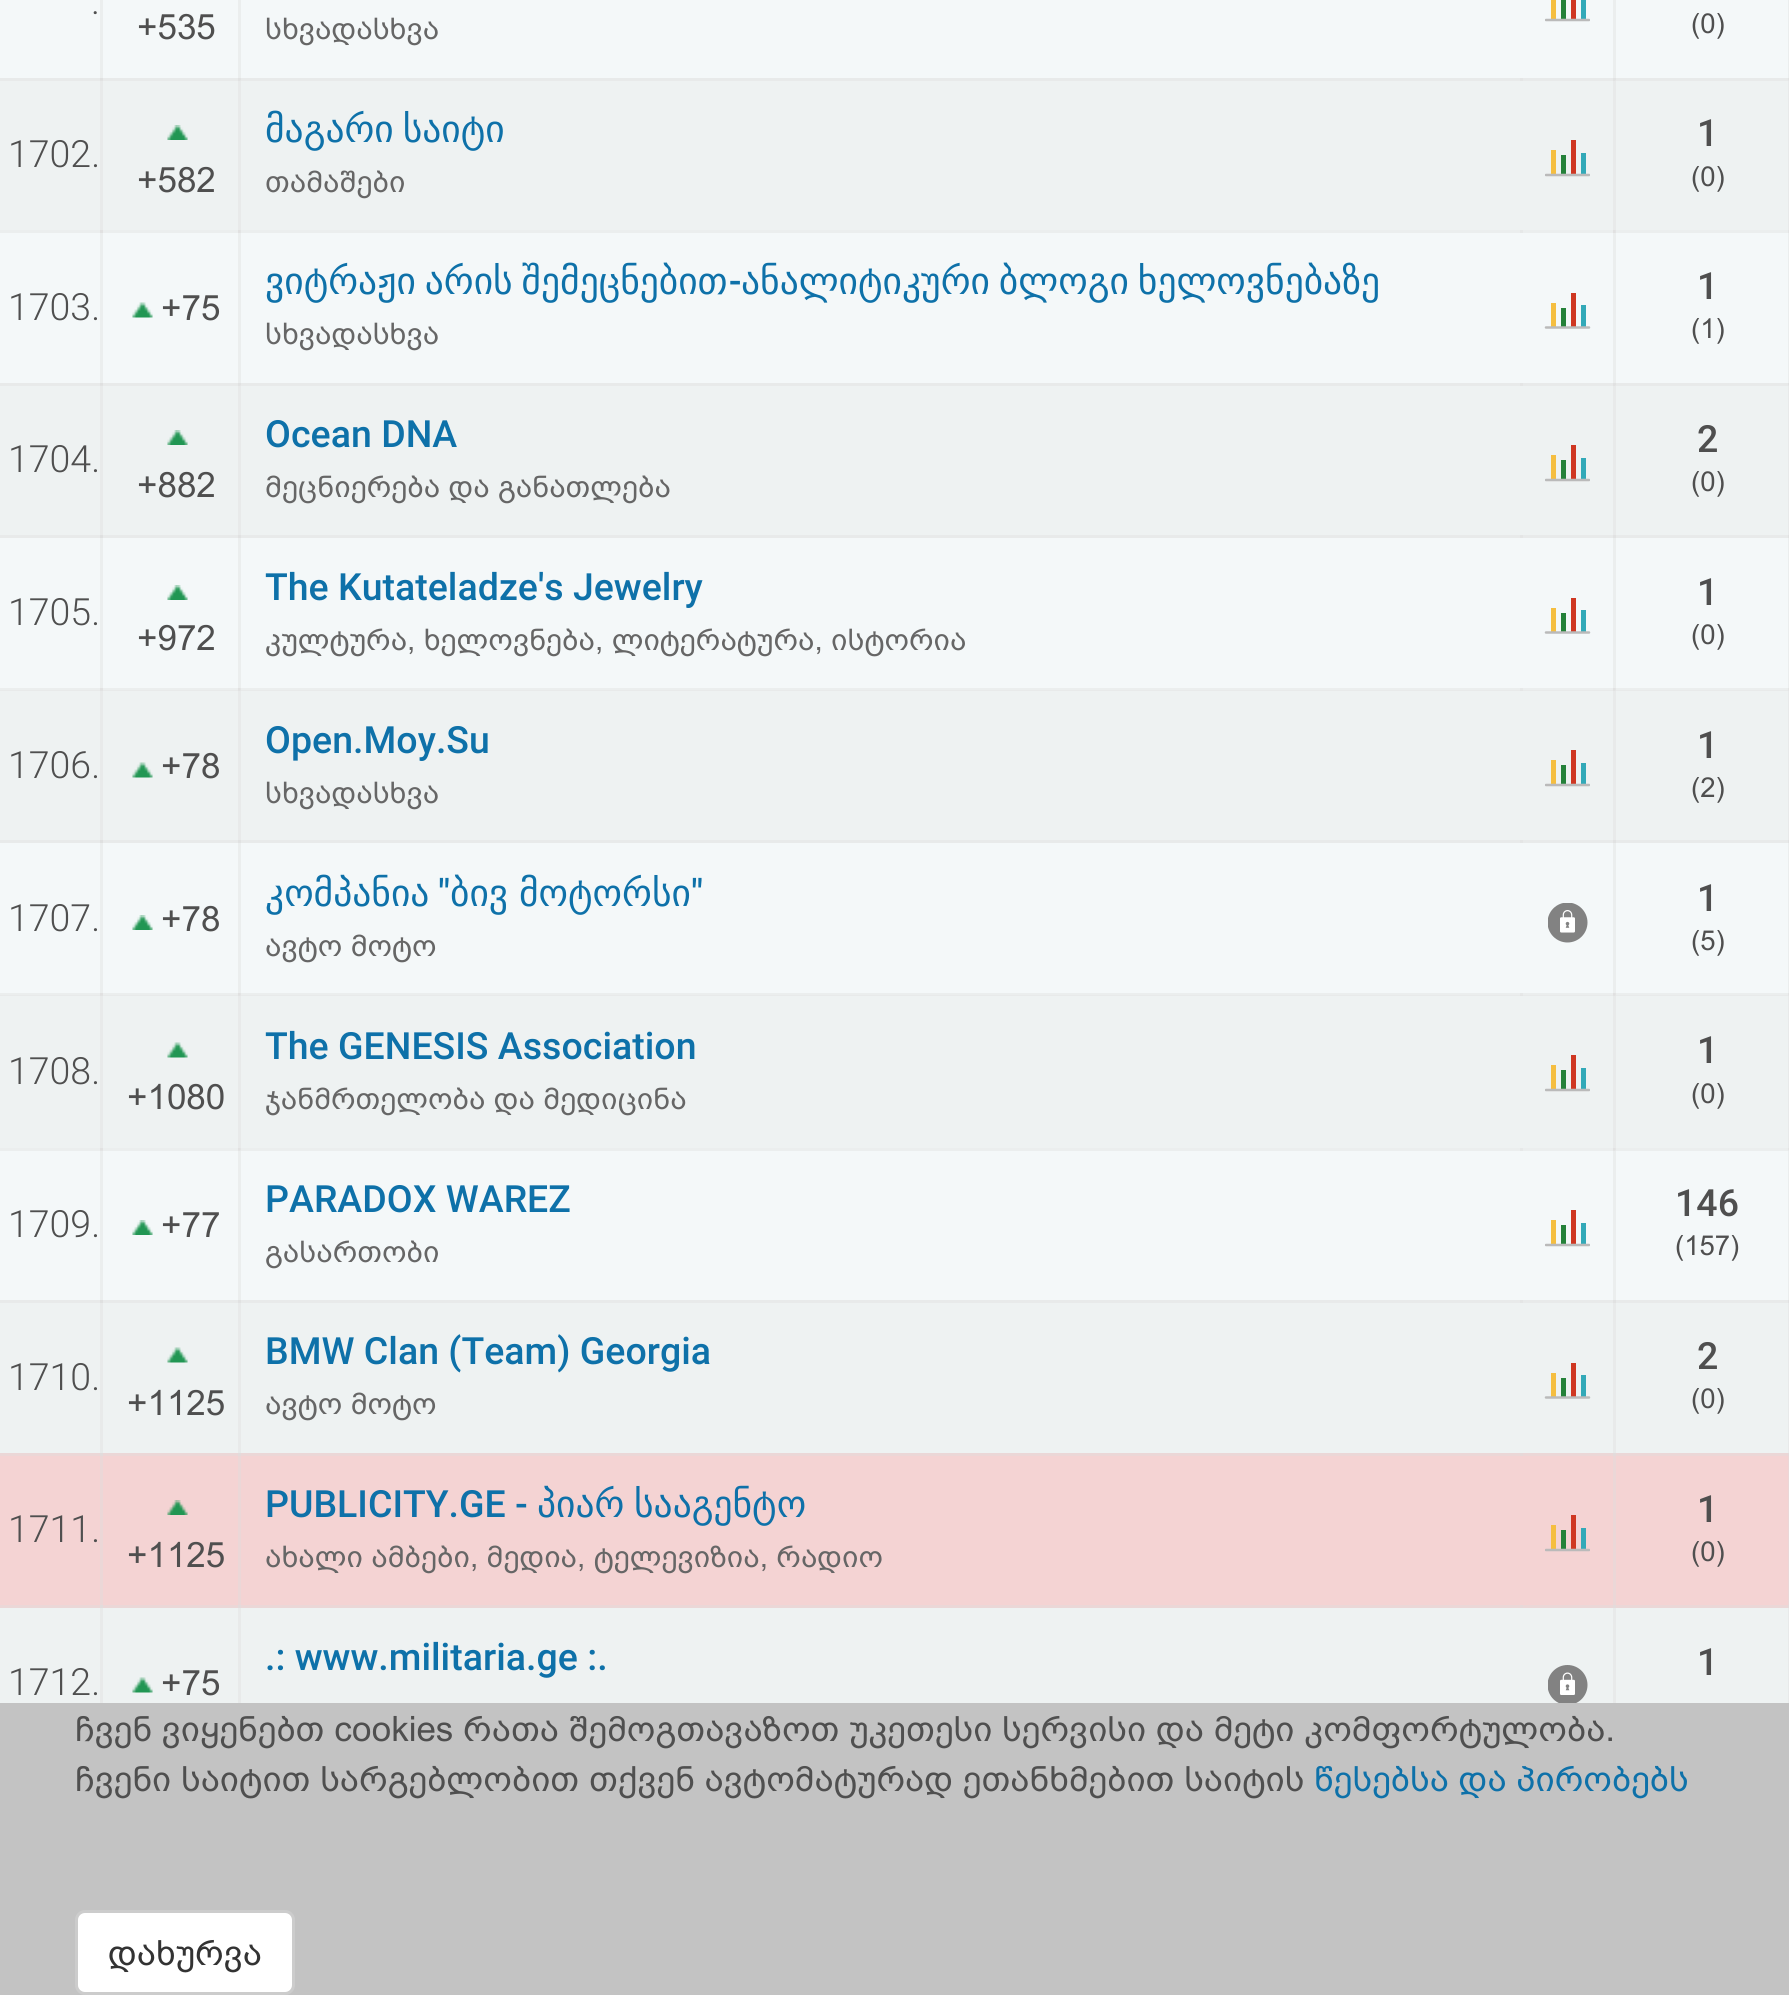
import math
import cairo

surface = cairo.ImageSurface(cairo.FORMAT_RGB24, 1789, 1995)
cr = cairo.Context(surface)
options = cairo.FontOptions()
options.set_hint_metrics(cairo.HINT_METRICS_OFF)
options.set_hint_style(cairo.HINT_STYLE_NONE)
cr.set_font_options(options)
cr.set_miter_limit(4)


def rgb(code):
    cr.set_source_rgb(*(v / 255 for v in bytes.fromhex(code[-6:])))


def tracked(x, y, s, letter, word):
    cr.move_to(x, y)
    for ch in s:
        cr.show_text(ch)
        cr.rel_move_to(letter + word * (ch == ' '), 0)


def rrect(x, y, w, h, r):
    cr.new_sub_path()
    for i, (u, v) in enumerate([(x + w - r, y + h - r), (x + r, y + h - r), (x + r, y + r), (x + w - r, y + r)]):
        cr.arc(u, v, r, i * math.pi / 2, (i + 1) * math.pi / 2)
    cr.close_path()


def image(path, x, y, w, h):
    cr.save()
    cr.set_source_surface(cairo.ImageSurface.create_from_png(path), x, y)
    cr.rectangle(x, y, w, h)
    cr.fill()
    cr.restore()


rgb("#f4f8f9")
cr.paint()
for x, y, w, h, color in [
    (100, 0, 3, 80, "#ebeeee"),
    (238, 0, 3, 80, "#ebeeee"),
    (1613, 0, 3, 80, "#ebeeee"),
    (1788, 0, 1, 80, "#ebeeee"),
    (100, 230, 3, 155, "#ebeeee"),
    (0, 230, 103, 3, "#ebeeee"),
    (238, 230, 3, 155, "#ebeeee"),
    (100, 230, 1423, 3, "#ebeeee"),
    (100, 230, 3, 3, "#e1e1e1"),
    (238, 230, 3, 3, "#e3e4e4"),
    (238, 230, 2, 3, "#e1e1e1"),
    (1613, 230, 3, 155, "#ebeeee"),
    (1520, 230, 95, 3, "#ebeeee"),
    (1520, 230, 3, 3, "#e6e8e8"),
    (1788, 230, 1, 155, "#ebeeee"),
    (100, 535, 3, 155, "#ebeeee"),
    (238, 535, 3, 155, "#ebeeee"),
    (1613, 535, 3, 155, "#ebeeee"),
    (1788, 535, 1, 155, "#ebeeee"),
    (0, 688, 1789, 2, "#ebeeee"),
    (100, 688, 3, 2, "#e1e1e1"),
    (238, 688, 3, 2, "#e3e4e4"),
    (238, 688, 2, 2, "#e1e1e1"),
    (1520, 688, 3, 2, "#e6e8e8"),
    (1613, 688, 3, 2, "#e3e4e4"),
    (1613, 688, 2, 2, "#e1e1e1"),
    (1788, 688, 1, 2, "#e3e4e4"),
    (100, 840, 3, 155, "#ebeeee"),
    (238, 840, 3, 155, "#ebeeee"),
    (1613, 840, 3, 155, "#ebeeee"),
    (1788, 840, 1, 155, "#ebeeee"),
    (0, 993, 1789, 2, "#ebeeee"),
    (100, 993, 3, 2, "#e1e1e1"),
    (238, 993, 3, 2, "#e3e4e4"),
    (238, 993, 2, 2, "#e1e1e1"),
    (1520, 993, 3, 2, "#e6e8e8"),
    (1613, 993, 3, 2, "#e3e4e4"),
    (1613, 993, 2, 2, "#e1e1e1"),
    (1788, 993, 1, 2, "#e3e4e4"),
    (100, 1148, 3, 155, "#ebeeee"),
    (0, 1148, 103, 3, "#ebeeee"),
    (238, 1148, 3, 155, "#ebeeee"),
    (100, 1148, 1423, 3, "#ebeeee"),
    (100, 1150, 3, 1, "#e3e4e4"),
    (100, 1148, 3, 2, "#e1e1e1"),
    (238, 1150, 3, 1, "#e6e8e8"),
    (238, 1148, 3, 2, "#e3e4e4"),
    (238, 1148, 2, 3, "#e3e4e4"),
    (238, 1148, 2, 2, "#e1e1e1"),
    (1613, 1148, 3, 155, "#ebeeee"),
    (1520, 1148, 95, 3, "#ebeeee"),
    (1520, 1148, 3, 3, "#e6e8e8"),
    (1788, 1148, 1, 155, "#ebeeee"),
    (1551, 0, 5, 20, "#f5be40"),
    (1561, 0, 5, 20, "#248139"),
    (1571, 0, 5, 20, "#cf3722"),
    (1581, 0, 5, 20, "#32a9b8"),
]:
    rgb(color)
    cr.rectangle(x, y, w, h)
    cr.fill()
cr.save()
cr.rectangle(1545, 0, 45, 23)
cr.clip()
cr.new_path()
cr.move_to(1546, 20)
cr.line_to(1589, 20)
rgb("#bababa")
cr.set_line_width(2.5)
cr.set_line_cap(cairo.LINE_CAP_ROUND)
cr.set_line_join(cairo.LINE_JOIN_ROUND)
cr.stroke()
cr.restore()
for x, y, w, h, color in [
    (0, 81, 1788, 149, "#eef2f2"),
    (100, 78, 3, 152, "#e8eaea"),
    (0, 78, 103, 3, "#e8eaea"),
    (238, 78, 3, 152, "#e8eaea"),
    (100, 78, 1423, 3, "#e8eaea"),
    (100, 80, 3, 1, "#e1e2e2"),
    (100, 78, 3, 2, "#dfe0e0"),
    (238, 80, 3, 1, "#e4e5e5"),
    (238, 78, 3, 2, "#e1e2e2"),
    (238, 78, 2, 3, "#e1e2e2"),
    (1613, 78, 3, 152, "#e8eaea"),
    (1520, 78, 95, 3, "#e8eaea"),
    (1520, 78, 3, 3, "#e4e5e5"),
    (1788, 78, 1, 152, "#e8eaea"),
]:
    rgb(color)
    cr.rectangle(x, y, w, h)
    cr.fill()
image("img/1.png", 167, 125, 21, 15)
for x, y, w, h, color in [
    (1551, 150, 5, 25, "#f5be40"),
    (1561, 155, 5, 20, "#248139"),
    (1571, 140, 5, 35, "#cf3722"),
    (1581, 153, 5, 22, "#32a9b8"),
]:
    rgb(color)
    cr.rectangle(x, y, w, h)
    cr.fill()
cr.save()
cr.rectangle(1545, 140, 45, 38)
cr.clip()
cr.new_path()
cr.move_to(1546, 175)
cr.line_to(1589, 175)
rgb("#bababa")
cr.set_line_width(2.5)
cr.set_line_cap(cairo.LINE_CAP_ROUND)
cr.set_line_join(cairo.LINE_JOIN_ROUND)
cr.stroke()
cr.restore()
for x, y, w, h, color in [
    (1613, 78, 176, 3, "#e8eaea"),
    (1613, 80, 3, 1, "#e4e5e5"),
    (1613, 78, 3, 2, "#e1e2e2"),
    (1613, 78, 2, 3, "#e1e2e2"),
    (1788, 78, 1, 3, "#e4e5e5"),
    (1788, 78, 1, 2, "#e1e2e2"),
]:
    rgb(color)
    cr.rectangle(x, y, w, h)
    cr.fill()
image("img/2.png", 132, 302, 21, 16)
for x, y, w, h, color in [
    (1551, 303, 5, 25, "#f5be40"),
    (1561, 308, 5, 20, "#248139"),
    (1571, 293, 5, 35, "#cf3722"),
    (1581, 305, 5, 23, "#32a9b8"),
]:
    rgb(color)
    cr.rectangle(x, y, w, h)
    cr.fill()
cr.new_path()
cr.move_to(1546, 327.5)
cr.line_to(1589, 327.5)
rgb("#bababa")
cr.set_line_width(2.5)
cr.set_line_cap(cairo.LINE_CAP_ROUND)
cr.set_line_join(cairo.LINE_JOIN_ROUND)
cr.stroke()
for x, y, w, h, color in [
    (1613, 230, 176, 3, "#ebeeee"),
    (1613, 230, 3, 3, "#e3e4e4"),
    (1613, 230, 2, 3, "#e1e1e1"),
    (1788, 230, 1, 3, "#e3e4e4"),
    (0, 386, 1788, 149, "#eef2f2"),
    (100, 383, 3, 155, "#e8eaea"),
    (0, 383, 103, 3, "#e8eaea"),
    (238, 383, 3, 155, "#e8eaea"),
    (100, 383, 1423, 3, "#e8eaea"),
    (100, 385, 3, 1, "#e1e2e2"),
    (100, 383, 3, 2, "#dfe0e0"),
    (238, 385, 3, 1, "#e4e5e5"),
    (238, 383, 3, 2, "#e1e2e2"),
    (238, 383, 2, 3, "#e1e2e2"),
    (1613, 383, 3, 155, "#e8eaea"),
    (1520, 383, 95, 3, "#e8eaea"),
    (1520, 383, 3, 3, "#e4e5e5"),
    (1788, 383, 1, 155, "#e8eaea"),
    (0, 535, 1789, 3, "#e8eaea"),
    (100, 535, 3, 3, "#dfe0e0"),
    (238, 535, 3, 3, "#e1e2e2"),
    (1520, 535, 3, 3, "#e4e5e5"),
]:
    rgb(color)
    cr.rectangle(x, y, w, h)
    cr.fill()
image("img/1.png", 167, 430, 21, 15)
for x, y, w, h, color in [
    (1551, 455, 5, 25, "#f5be40"),
    (1561, 460, 5, 20, "#248139"),
    (1571, 445, 5, 35, "#cf3722"),
    (1581, 458, 5, 22, "#32a9b8"),
]:
    rgb(color)
    cr.rectangle(x, y, w, h)
    cr.fill()
cr.save()
cr.rectangle(1545, 445, 45, 38)
cr.clip()
cr.new_path()
cr.move_to(1546, 480)
cr.line_to(1589, 480)
rgb("#bababa")
cr.stroke()
cr.restore()
for x, y, w, h, color in [
    (1613, 383, 176, 3, "#e8eaea"),
    (1613, 385, 3, 1, "#e4e5e5"),
    (1613, 383, 3, 2, "#e1e2e2"),
    (1613, 383, 2, 3, "#e1e2e2"),
    (1788, 383, 1, 3, "#e4e5e5"),
    (1788, 383, 1, 2, "#e1e2e2"),
    (1551, 608, 5, 25, "#f5be40"),
    (1561, 613, 5, 20, "#248139"),
    (1571, 598, 5, 35, "#cf3722"),
    (1581, 610, 5, 23, "#32a9b8"),
]:
    rgb(color)
    cr.rectangle(x, y, w, h)
    cr.fill()
cr.new_path()
cr.move_to(1546, 632.5)
cr.line_to(1589, 632.5)
rgb("#bababa")
cr.stroke()
rgb("#e1e2e2")
cr.rectangle(1613, 535, 3, 3)
cr.fill()
cr.rectangle(1788, 535, 1, 3)
cr.fill()
image("img/3.png", 167, 585, 21, 15)
for x, y, w, h, color in [
    (0, 691, 1788, 149, "#eef2f2"),
    (100, 690, 3, 153, "#e8eaea"),
    (0, 690, 103, 1, "#e8eaea"),
    (238, 690, 3, 153, "#e8eaea"),
    (100, 690, 1423, 1, "#e8eaea"),
    (100, 690, 3, 1, "#e1e2e2"),
    (238, 690, 3, 1, "#e4e5e5"),
    (238, 690, 2, 1, "#e1e2e2"),
    (1613, 690, 3, 153, "#e8eaea"),
    (1520, 690, 95, 1, "#e8eaea"),
    (1520, 690, 3, 1, "#e4e5e5"),
    (1788, 690, 1, 153, "#e8eaea"),
    (1613, 690, 176, 1, "#e8eaea"),
    (1613, 690, 3, 1, "#e4e5e5"),
    (1613, 690, 2, 1, "#e1e2e2"),
    (1788, 690, 1, 1, "#e4e5e5"),
    (0, 840, 1789, 3, "#e8eaea"),
    (100, 840, 3, 3, "#dfe0e0"),
    (238, 840, 3, 3, "#e1e2e2"),
    (1520, 840, 3, 3, "#e4e5e5"),
]:
    rgb(color)
    cr.rectangle(x, y, w, h)
    cr.fill()
image("img/4.png", 132, 762, 21, 16)
for x, y, w, h, color in [
    (1551, 760, 5, 25, "#f5be40"),
    (1561, 765, 5, 20, "#248139"),
    (1571, 750, 5, 35, "#cf3722"),
    (1581, 763, 5, 22, "#32a9b8"),
]:
    rgb(color)
    cr.rectangle(x, y, w, h)
    cr.fill()
cr.save()
cr.rectangle(1545, 750, 45, 38)
cr.clip()
cr.new_path()
cr.move_to(1546, 785)
cr.line_to(1589, 785)
rgb("#bababa")
cr.stroke()
cr.restore()
image("img/3.png", 132, 915, 21, 15)
image("img/5.png", 1548, 903, 40, 40)
for x, y, w, h, color in [
    (1613, 840, 3, 3, "#e1e2e2"),
    (1788, 840, 1, 3, "#e1e2e2"),
    (0, 996, 1788, 152, "#eef2f2"),
    (100, 995, 3, 153, "#e8eaea"),
    (0, 995, 103, 1, "#e8eaea"),
    (238, 995, 3, 153, "#e8eaea"),
    (100, 995, 1423, 1, "#e8eaea"),
    (100, 995, 3, 1, "#e1e2e2"),
    (238, 995, 3, 1, "#e4e5e5"),
    (238, 995, 2, 1, "#e1e2e2"),
    (1613, 995, 3, 153, "#e8eaea"),
    (1520, 995, 95, 1, "#e8eaea"),
    (1520, 995, 3, 1, "#e4e5e5"),
    (1788, 995, 1, 153, "#e8eaea"),
    (1613, 995, 176, 1, "#e8eaea"),
    (1613, 995, 3, 1, "#e4e5e5"),
    (1613, 995, 2, 1, "#e1e2e2"),
    (1788, 995, 1, 1, "#e4e5e5"),
    (1551, 1065, 5, 25, "#f5be40"),
    (1561, 1070, 5, 20, "#248139"),
    (1571, 1055, 5, 35, "#cf3722"),
    (1581, 1068, 5, 22, "#32a9b8"),
]:
    rgb(color)
    cr.rectangle(x, y, w, h)
    cr.fill()
cr.save()
cr.rectangle(1545, 1055, 45, 38)
cr.clip()
cr.new_path()
cr.move_to(1546, 1090)
cr.line_to(1589, 1090)
rgb("#bababa")
cr.stroke()
cr.restore()
image("img/4.png", 167, 1042, 21, 16)
image("img/3.png", 132, 1220, 21, 15)
for x, y, w, h, color in [
    (1551, 1220, 5, 25, "#f5be40"),
    (1561, 1225, 5, 20, "#248139"),
    (1571, 1210, 5, 35, "#cf3722"),
    (1581, 1223, 5, 22, "#32a9b8"),
]:
    rgb(color)
    cr.rectangle(x, y, w, h)
    cr.fill()
cr.save()
cr.rectangle(1545, 1210, 45, 38)
cr.clip()
cr.new_path()
cr.move_to(1546, 1245)
cr.line_to(1589, 1245)
rgb("#bababa")
cr.stroke()
cr.restore()
for x, y, w, h, color in [
    (1613, 1148, 176, 3, "#ebeeee"),
    (1613, 1150, 3, 1, "#e6e8e8"),
    (1613, 1148, 3, 2, "#e3e4e4"),
    (1613, 1148, 2, 3, "#e3e4e4"),
    (1613, 1148, 2, 2, "#e1e1e1"),
    (1788, 1148, 1, 3, "#e6e8e8"),
    (1788, 1148, 1, 2, "#e3e4e4"),
    (0, 1303, 1788, 150, "#eef2f2"),
    (100, 1300, 3, 153, "#e8eaea"),
    (0, 1300, 103, 3, "#e8eaea"),
    (238, 1300, 3, 153, "#e8eaea"),
    (100, 1300, 1423, 3, "#e8eaea"),
    (100, 1300, 3, 3, "#dfe0e0"),
    (238, 1300, 3, 3, "#e1e2e2"),
    (1613, 1300, 3, 153, "#e8eaea"),
    (1520, 1300, 95, 3, "#e8eaea"),
    (1520, 1300, 3, 3, "#e4e5e5"),
    (1788, 1300, 1, 153, "#e8eaea"),
    (1551, 1373, 5, 25, "#f5be40"),
    (1561, 1378, 5, 20, "#248139"),
    (1571, 1363, 5, 35, "#cf3722"),
    (1581, 1375, 5, 23, "#32a9b8"),
]:
    rgb(color)
    cr.rectangle(x, y, w, h)
    cr.fill()
cr.new_path()
cr.move_to(1546, 1397.5)
cr.line_to(1589, 1397.5)
rgb("#bababa")
cr.stroke()
for x, y, w, h, color in [
    (1613, 1300, 176, 3, "#e8eaea"),
    (1613, 1300, 3, 3, "#e1e2e2"),
    (1788, 1300, 1, 3, "#e1e2e2"),
]:
    rgb(color)
    cr.rectangle(x, y, w, h)
    cr.fill()
image("img/4.png", 167, 1347, 21, 16)
for x, y, w, h, color in [
    (0, 1456, 1788, 149, "#f4d3d3"),
    (100, 1453, 3, 155, "#ebd7d7"),
    (0, 1453, 103, 3, "#ebd7d7"),
    (238, 1453, 3, 155, "#ebd7d7"),
    (100, 1453, 1423, 3, "#ebd7d7"),
    (100, 1455, 3, 1, "#e3dbdb"),
    (100, 1453, 3, 2, "#e1dcdc"),
    (238, 1455, 3, 1, "#e6d9d9"),
    (238, 1453, 3, 2, "#e3dbdb"),
    (238, 1453, 2, 3, "#e3dbdb"),
    (1613, 1453, 3, 155, "#ebd7d7"),
    (1520, 1453, 95, 3, "#ebd7d7"),
    (1520, 1453, 3, 3, "#e6d9d9"),
    (1788, 1453, 1, 155, "#ebd7d7"),
    (0, 1605, 1789, 3, "#ebd7d7"),
    (100, 1605, 3, 3, "#e1dcdc"),
    (238, 1605, 3, 3, "#e3dbdb"),
    (1520, 1605, 3, 3, "#e6d9d9"),
]:
    rgb(color)
    cr.rectangle(x, y, w, h)
    cr.fill()
image("img/6.png", 167, 1500, 21, 15)
for x, y, w, h, color in [
    (1551, 1525, 5, 25, "#f5be40"),
    (1561, 1530, 5, 20, "#248139"),
    (1571, 1515, 5, 35, "#cf3722"),
    (1581, 1528, 5, 22, "#32a9b8"),
]:
    rgb(color)
    cr.rectangle(x, y, w, h)
    cr.fill()
cr.save()
cr.rectangle(1545, 1515, 45, 38)
cr.clip()
cr.new_path()
cr.move_to(1546, 1550)
cr.line_to(1589, 1550)
rgb("#bababa")
cr.stroke()
cr.restore()
for x, y, w, h, color in [
    (1613, 1453, 176, 3, "#ebd7d7"),
    (1613, 1455, 3, 1, "#e6d9d9"),
    (1613, 1453, 3, 2, "#e3dbdb"),
    (1613, 1453, 2, 3, "#e3dbdb"),
    (1788, 1453, 1, 3, "#e6d9d9"),
    (1788, 1453, 1, 2, "#e3dbdb"),
    (0, 1608, 1788, 95, "#eef2f2"),
    (100, 1608, 3, 95, "#e8eaea"),
    (238, 1608, 3, 95, "#e8eaea"),
    (1613, 1608, 3, 95, "#e8eaea"),
    (1788, 1608, 1, 95, "#e8eaea"),
    (1613, 1605, 3, 3, "#e3dbdb"),
    (1788, 1605, 1, 3, "#e3dbdb"),
]:
    rgb(color)
    cr.rectangle(x, y, w, h)
    cr.fill()
image("img/4.png", 132, 1677, 21, 16)
image("img/7.png", 1548, 1665, 40, 38)
rgb("#c3c3c3")
cr.rectangle(0, 1703, 1789, 292)
cr.fill()
rgb("#ffffff")
rrect(76.5, 1911.5, 217, 82, 8.5)
cr.fill_preserve()
rgb("#cccccc")
cr.set_line_width(3)
cr.set_line_cap(cairo.LINE_CAP_BUTT)
cr.set_line_join(cairo.LINE_JOIN_MITER)
cr.stroke()
cr.select_font_face("Roboto Light")
cr.set_font_size(37.5)
rgb("#4f4f4f")
cr.move_to(91, 14)
cr.show_text(".")
cr.select_font_face("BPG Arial")
cr.set_font_size(35)
cr.move_to(137, 39)
cr.show_text("+535")
cr.set_font_size(30)
rgb("#666666")
cr.move_to(265, 39)
cr.show_text("სხვადასხვა")
cr.set_font_size(27.5)
rgb("#4f4f4f")
cr.move_to(1691, 33)
cr.show_text("(0)")
cr.select_font_face("Roboto Light")
cr.set_font_size(37.5)
cr.move_to(8, 167)
cr.show_text("1702.")
cr.select_font_face("BPG Arial")
cr.set_font_size(35)
cr.move_to(137, 192)
cr.show_text("+582")
cr.select_font_face("DejaVu Sans")
cr.set_font_size(37.5)
rgb("#0e71a9")
tracked(265, 142, "მაგარი საიტი", 0, -3)
cr.select_font_face("BPG Arial")
cr.set_font_size(30)
rgb("#666666")
cr.move_to(265, 192)
cr.show_text("თამაშები")
cr.select_font_face("Roboto Medium")
cr.set_font_size(37.5)
rgb("#4f4f4f")
cr.move_to(1697, 146)
cr.show_text("1")
cr.select_font_face("BPG Arial")
cr.set_font_size(27.5)
cr.move_to(1691, 186)
cr.show_text("(0)")
cr.select_font_face("Roboto Light")
cr.set_font_size(37.5)
cr.move_to(8, 320)
cr.show_text("1703.")
cr.select_font_face("BPG Arial")
cr.set_font_size(35)
cr.move_to(161, 320)
cr.show_text("+75")
cr.select_font_face("DejaVu Sans")
cr.set_font_size(37.5)
rgb("#0e71a9")
tracked(265, 294, "ვიტრაჟი არის შემეცნებით", 0, -3)
cr.select_font_face("Roboto Medium")
cr.move_to(729, 294)
cr.show_text("-")
cr.select_font_face("DejaVu Sans")
tracked(741, 294, "ანალიტიკური ბლოგი ხელოვნებაზე", 0, -3)
cr.select_font_face("BPG Arial")
cr.set_font_size(30)
rgb("#666666")
cr.move_to(265, 344)
cr.show_text("სხვადასხვა")
cr.select_font_face("Roboto Medium")
cr.set_font_size(37.5)
rgb("#4f4f4f")
cr.move_to(1697, 299)
cr.show_text("1")
cr.select_font_face("BPG Arial")
cr.set_font_size(27.5)
cr.move_to(1691, 338)
cr.show_text("(1)")
cr.select_font_face("Roboto Light")
cr.set_font_size(37.5)
cr.move_to(8, 472)
cr.show_text("1704.")
cr.select_font_face("BPG Arial")
cr.set_font_size(35)
cr.move_to(137, 497)
cr.show_text("+882")
cr.select_font_face("Roboto Medium")
cr.set_font_size(37.5)
rgb("#0e71a9")
cr.move_to(265, 447)
cr.show_text("Ocean DNA")
cr.select_font_face("BPG Arial")
cr.set_font_size(30)
rgb("#666666")
cr.move_to(265, 497)
cr.show_text("მეცნიერება და განათლება")
cr.select_font_face("Roboto Medium")
cr.set_font_size(37.5)
rgb("#4f4f4f")
cr.move_to(1697, 452)
cr.show_text("2")
cr.select_font_face("BPG Arial")
cr.set_font_size(27.5)
cr.move_to(1691, 491)
cr.show_text("(0)")
cr.select_font_face("Roboto Light")
cr.set_font_size(37.5)
cr.move_to(8, 625)
cr.show_text("1705.")
cr.select_font_face("Roboto Medium")
rgb("#0e71a9")
cr.move_to(265, 600)
cr.show_text("The Kutateladze's Jewelry")
cr.select_font_face("BPG Arial")
cr.set_font_size(30)
rgb("#666666")
cr.move_to(265, 650)
cr.show_text("კულტურა, ხელოვნება, ლიტერატურა, ისტორია")
cr.select_font_face("Roboto Medium")
cr.set_font_size(37.5)
rgb("#4f4f4f")
cr.move_to(1697, 605)
cr.show_text("1")
cr.select_font_face("BPG Arial")
cr.set_font_size(27.5)
cr.move_to(1691, 644)
cr.show_text("(0)")
cr.set_font_size(35)
cr.move_to(137, 650)
cr.show_text("+972")
cr.select_font_face("Roboto Light")
cr.set_font_size(37.5)
cr.move_to(8, 778)
cr.show_text("1706.")
cr.select_font_face("BPG Arial")
cr.set_font_size(35)
cr.move_to(161, 778)
cr.show_text("+78")
cr.select_font_face("Roboto Medium")
cr.set_font_size(37.5)
rgb("#0e71a9")
cr.move_to(265, 753)
cr.show_text("Open.Moy.Su")
cr.select_font_face("BPG Arial")
cr.set_font_size(30)
rgb("#666666")
cr.move_to(265, 803)
cr.show_text("სხვადასხვა")
cr.select_font_face("Roboto Medium")
cr.set_font_size(37.5)
rgb("#4f4f4f")
cr.move_to(1697, 758)
cr.show_text("1")
cr.select_font_face("BPG Arial")
cr.set_font_size(27.5)
cr.move_to(1691, 797)
cr.show_text("(2)")
cr.select_font_face("Roboto Light")
cr.set_font_size(37.5)
cr.move_to(8, 931)
cr.show_text("1707.")
cr.select_font_face("BPG Arial")
cr.set_font_size(35)
cr.move_to(161, 931)
cr.show_text("+78")
cr.select_font_face("DejaVu Sans")
cr.set_font_size(37.5)
rgb("#0e71a9")
cr.move_to(265, 906)
cr.show_text("კომპანია")
cr.select_font_face("Roboto Medium")
cr.move_to(438, 906)
cr.show_text("\"")
cr.select_font_face("DejaVu Sans")
tracked(450, 906, "ბივ მოტორსი", 0, -1)
cr.select_font_face("Roboto Medium")
cr.move_to(691, 906)
cr.show_text("\"")
cr.select_font_face("BPG Arial")
cr.set_font_size(30)
rgb("#666666")
cr.move_to(265, 956)
cr.show_text("ავტო მოტო")
cr.select_font_face("Roboto Medium")
cr.set_font_size(37.5)
rgb("#4f4f4f")
cr.move_to(1697, 911)
cr.show_text("1")
cr.select_font_face("BPG Arial")
cr.set_font_size(27.5)
cr.move_to(1691, 950)
cr.show_text("(5)")
cr.select_font_face("Roboto Light")
cr.set_font_size(37.5)
cr.move_to(8, 1084)
cr.show_text("1708.")
cr.select_font_face("Roboto Medium")
rgb("#0e71a9")
cr.move_to(265, 1059)
cr.show_text("The GENESIS Association")
cr.select_font_face("BPG Arial")
cr.set_font_size(30)
rgb("#666666")
cr.move_to(265, 1109)
cr.show_text("ჯანმრთელობა და მედიცინა")
cr.select_font_face("Roboto Medium")
cr.set_font_size(37.5)
rgb("#4f4f4f")
cr.move_to(1697, 1063)
cr.show_text("1")
cr.select_font_face("BPG Arial")
cr.set_font_size(27.5)
cr.move_to(1691, 1103)
cr.show_text("(0)")
cr.set_font_size(35)
cr.move_to(127, 1109)
cr.show_text("+1080")
cr.select_font_face("Roboto Light")
cr.set_font_size(37.5)
cr.move_to(8, 1237)
cr.show_text("1709.")
cr.select_font_face("BPG Arial")
cr.set_font_size(35)
cr.move_to(161, 1237)
cr.show_text("+77")
cr.select_font_face("Roboto Medium")
cr.set_font_size(37.5)
rgb("#0e71a9")
cr.move_to(265, 1212)
cr.show_text("PARADOX WAREZ")
cr.select_font_face("BPG Arial")
cr.set_font_size(30)
rgb("#666666")
cr.move_to(265, 1262)
cr.show_text("გასართობი")
cr.select_font_face("Roboto Medium")
cr.set_font_size(37.5)
rgb("#4f4f4f")
cr.move_to(1675, 1216)
cr.show_text("146")
cr.select_font_face("BPG Arial")
cr.set_font_size(27.5)
cr.move_to(1675, 1255)
cr.show_text("(157)")
cr.select_font_face("Roboto Light")
cr.set_font_size(37.5)
cr.move_to(8, 1390)
cr.show_text("1710.")
cr.select_font_face("Roboto Medium")
rgb("#0e71a9")
cr.move_to(265, 1364)
cr.show_text("BMW Clan (Team) Georgia")
cr.select_font_face("BPG Arial")
cr.set_font_size(30)
rgb("#666666")
cr.move_to(265, 1414)
cr.show_text("ავტო მოტო")
cr.select_font_face("Roboto Medium")
cr.set_font_size(37.5)
rgb("#4f4f4f")
cr.move_to(1697, 1369)
cr.show_text("2")
cr.select_font_face("BPG Arial")
cr.set_font_size(27.5)
cr.move_to(1691, 1408)
cr.show_text("(0)")
cr.set_font_size(35)
cr.move_to(127, 1415)
cr.show_text("+1125")
cr.select_font_face("Roboto Light")
cr.set_font_size(37.5)
cr.move_to(8, 1542)
cr.show_text("1711.")
cr.select_font_face("BPG Arial")
cr.set_font_size(35)
cr.move_to(127, 1567)
cr.show_text("+1125")
cr.select_font_face("Roboto Medium")
cr.set_font_size(37.5)
rgb("#0e71a9")
cr.move_to(265, 1517)
cr.show_text("PUBLICITY.GE -")
cr.select_font_face("DejaVu Sans")
cr.move_to(537, 1517)
cr.show_text("პიარ")
cr.move_to(634, 1517)
cr.show_text("სააგენტო")
cr.select_font_face("BPG Arial")
cr.set_font_size(30)
rgb("#666666")
cr.move_to(265, 1567)
cr.show_text("ახალი ამბები, მედია, ტელევიზია, რადიო")
cr.select_font_face("Roboto Medium")
cr.set_font_size(37.5)
rgb("#4f4f4f")
cr.move_to(1697, 1522)
cr.show_text("1")
cr.select_font_face("BPG Arial")
cr.set_font_size(27.5)
cr.move_to(1691, 1561)
cr.show_text("(0)")
cr.select_font_face("Roboto Medium")
cr.set_font_size(37.5)
rgb("#0e71a9")
cr.move_to(265, 1670)
cr.show_text(".: www.militaria.ge :.")
rgb("#4f4f4f")
cr.move_to(1697, 1675)
cr.show_text("1")
cr.select_font_face("Roboto Light")
cr.move_to(8, 1695)
cr.show_text("1712.")
cr.select_font_face("BPG Arial")
cr.set_font_size(35)
for x, y, s in [
    (161, 1695, "+75"),
    (75, 1741, "ჩვენ ვიყენებთ cookies რათა შემოგთავაზოთ უკეთესი სერვისი და მეტი კომფორტულობა."),
    (75, 1791, "ჩვენი საიტით სარგებლობით თქვენ ავტომატურად ეთანხმებით საიტის"),
]:
    cr.move_to(x, y)
    cr.show_text(s)
rgb("#0e71a9")
cr.move_to(1314, 1791)
cr.show_text("წესებსა და პირობებს")
rgb("#333333")
cr.move_to(108, 1965)
cr.show_text("დახურვა")
surface.write_to_png("page.png")
